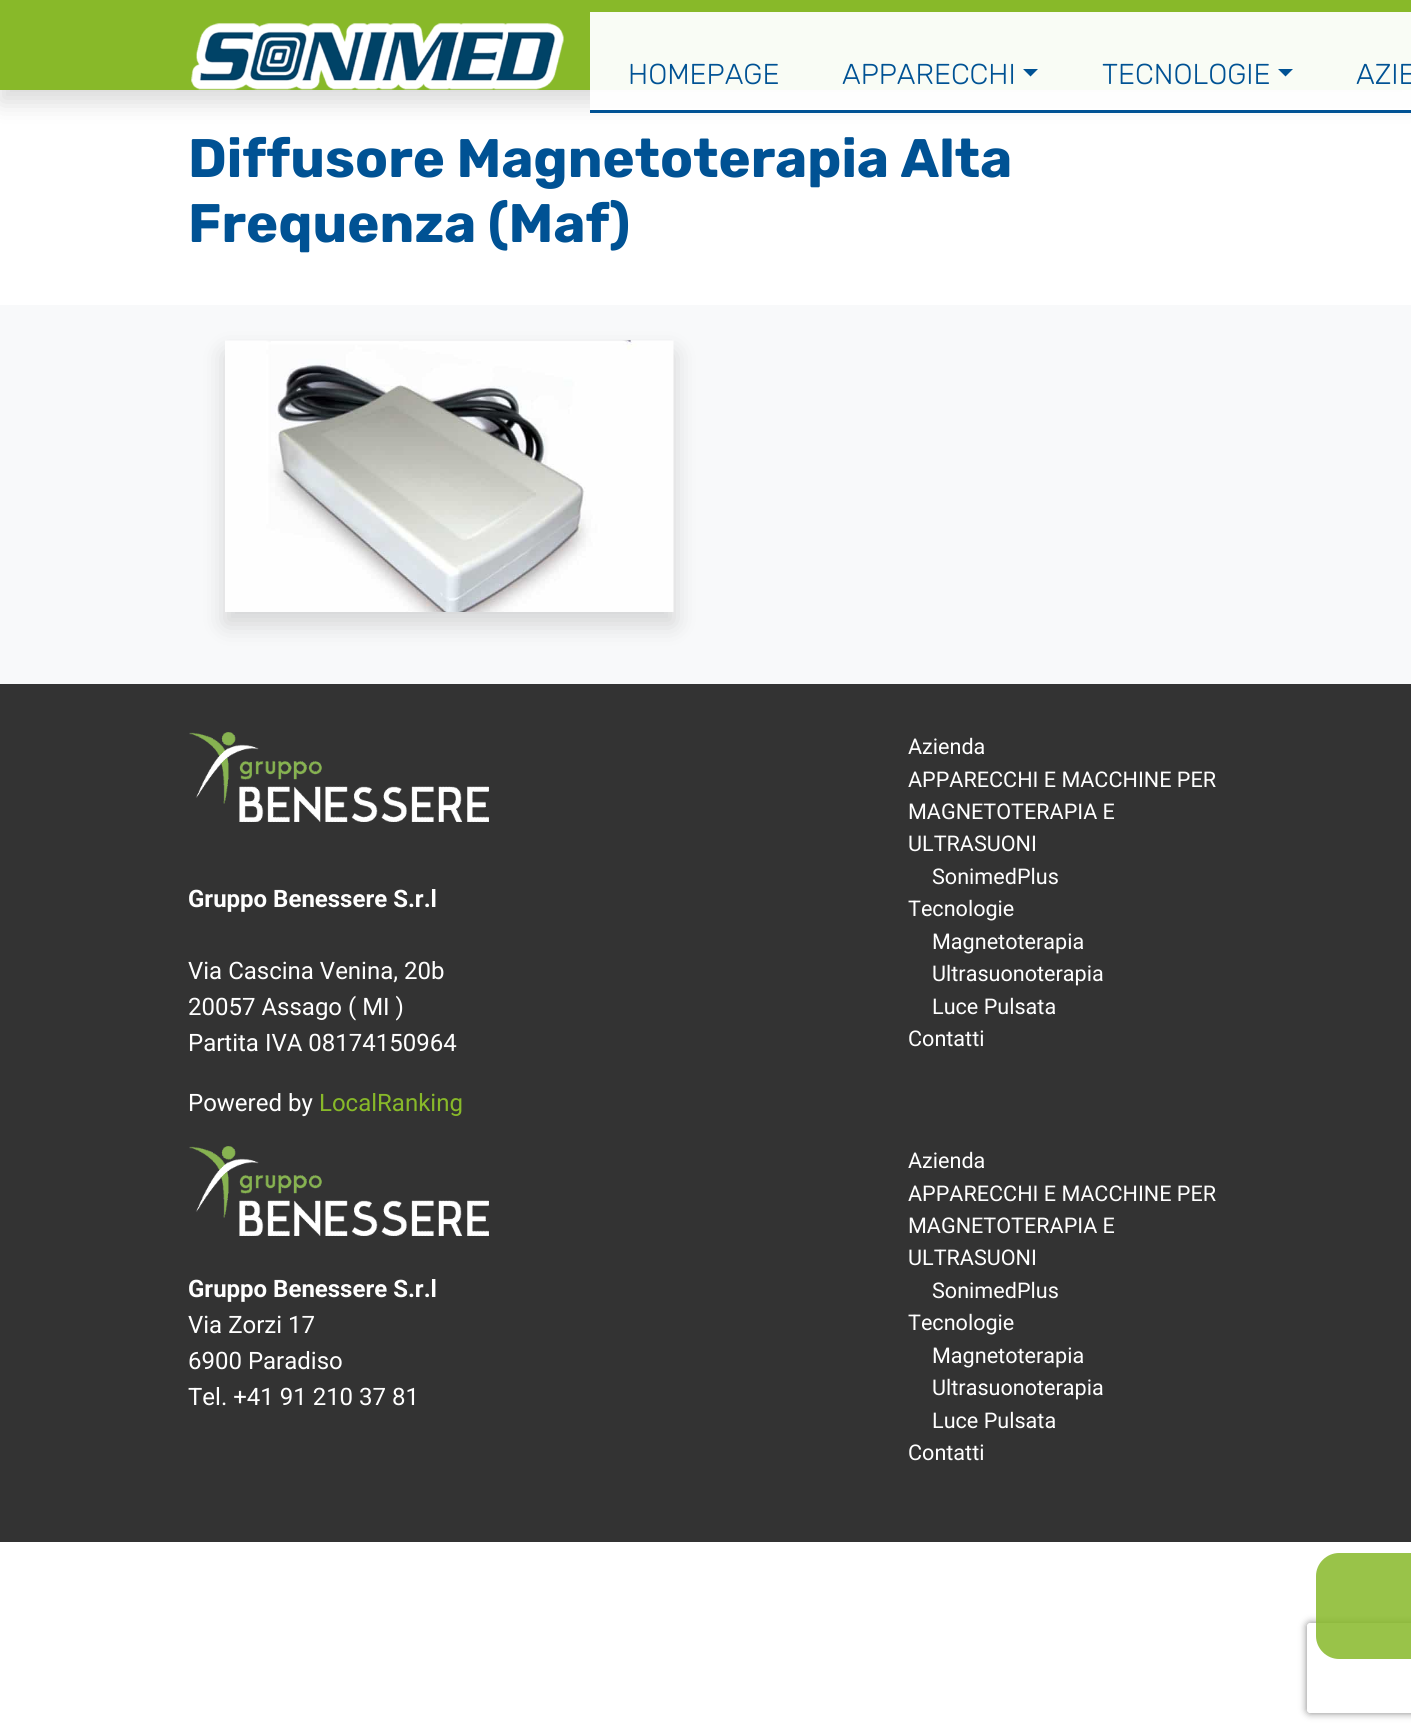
import math
import cairo

surface = cairo.ImageSurface(cairo.FORMAT_RGB24, 1411, 1734)
cr = cairo.Context(surface)
options = cairo.FontOptions()
options.set_hint_metrics(cairo.HINT_METRICS_OFF)
options.set_hint_style(cairo.HINT_STYLE_NONE)
cr.set_font_options(options)
cr.set_miter_limit(4)


def rgb(code):
    cr.set_source_rgb(*(v / 255 for v in bytes.fromhex(code[-6:])))


def rrect(x, y, w, h, r):
    cr.new_sub_path()
    for i, (u, v) in enumerate([(x + w - r, y + h - r), (x + r, y + h - r), (x + r, y + r), (x + w - r, y + r)]):
        cr.arc(u, v, r, i * math.pi / 2, (i + 1) * math.pi / 2)
    cr.close_path()


def soft_shadow(x, y, w, h, r, blur, alpha):
    cr.push_group_with_content(cairo.CONTENT_ALPHA)
    cr.set_operator(cairo.OPERATOR_SOURCE)
    for i in range(15, -16, -2):
        e = blur * i / 6
        if min(w, h) + 2 * e > 0:
            cr.set_source_rgba(0, 0, 0, alpha * math.erfc((i - 1) / 8.5) / 2)
            rrect(x - e, y - e, w + 2 * e, h + 2 * e, max(0, min(r + e + blur * .6, min(w, h) / 2 + e)))
            cr.fill()
    cr.mask(cr.pop_group())


def image(path, x, y, w, h):
    cr.save()
    cr.set_source_surface(cairo.ImageSurface.create_from_png(path), x, y)
    cr.rectangle(x, y, w, h)
    cr.fill()
    cr.restore()


rgb("#ffffff")
cr.paint()
rgb("#000000")
soft_shadow(0, 12, 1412, 90, 0, 12, 0.15)
rgb("#88b929")
cr.rectangle(0, 0, 1411, 90)
cr.fill()
image("img/1.png", 191, 23, 373, 67)
cr.set_source_rgba(1, 1, 1, 0.95)
cr.rectangle(590, 12, 821, 98)
cr.fill()
rgb("#005294")
cr.rectangle(590, 110, 821, 3)
cr.fill()
cr.new_path()
cr.move_to(1023, 69)
cr.line_to(1038, 69)
cr.line_to(1030.5, 76.5)
cr.close_path()
cr.fill()
cr.new_path()
cr.move_to(1278, 69)
cr.line_to(1293, 69)
cr.line_to(1285.5, 76.5)
cr.close_path()
cr.fill()
cr.save()
cr.set_fill_rule(cairo.FILL_RULE_EVEN_ODD)
cr.new_path()
cr.move_to(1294, 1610)
cr.line_to(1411, 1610)
cr.line_to(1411, 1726)
cr.line_to(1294, 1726)
cr.close_path()
cr.move_to(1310, 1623)
cr.line_to(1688, 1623)
cr.curve_to(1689.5, 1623, 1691, 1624.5, 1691, 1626)
cr.line_to(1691, 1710)
cr.curve_to(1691, 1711.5, 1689.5, 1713, 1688, 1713)
cr.line_to(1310, 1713)
cr.curve_to(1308.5, 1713, 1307, 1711.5, 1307, 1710)
cr.line_to(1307, 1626)
cr.curve_to(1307, 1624.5, 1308.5, 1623, 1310, 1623)
cr.close_path()
cr.clip()
rgb("#808080")
soft_shadow(1307, 1623, 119, 90, 3, 4, 1)
cr.restore()
cr.set_source_rgba(0.533, 0.725, 0.161, 0.85)
cr.new_path()
cr.move_to(1339, 1553)
cr.line_to(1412, 1553)
cr.line_to(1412, 1659)
cr.line_to(1339, 1659)
cr.curve_to(1326.5, 1659, 1316, 1648.5, 1316, 1636)
cr.line_to(1316, 1576)
cr.curve_to(1316, 1563.5, 1326.5, 1553, 1339, 1553)
cr.close_path()
cr.fill()
rgb("#f8f9fa")
cr.rectangle(0, 305, 1411, 379)
cr.fill()
rgb("#000000")
soft_shadow(225, 353, 449, 271, 0, 12, 0.15)
image("img/2.png", 225, 340, 449, 272)
rgb("#333333")
cr.rectangle(0, 684, 1411, 858)
cr.fill()
image("img/3.png", 189, 732, 300, 90)
image("img/3.png", 189, 1146, 300, 90)
cr.select_font_face("Rubik Light")
cr.set_font_size(28.75)
rgb("#005294")
for x, y, s in [
    (628, 84, "HOMEPAGE"),
    (842, 84, "APPARECCHI"),
    (1102, 84, "TECNOLOGIE"),
    (1356, 84, "AZIE"),
]:
    cr.move_to(x, y)
    cr.show_text(s)
cr.select_font_face("Rubik", cairo.FONT_SLANT_NORMAL, cairo.FONT_WEIGHT_BOLD)
cr.set_font_size(54.2)
cr.move_to(188, 177)
cr.show_text("Diffusore Magnetoterapia Alta")
cr.move_to(188, 242)
cr.show_text("Frequenza (Maf)")
cr.select_font_face("Roboto", cairo.FONT_SLANT_NORMAL, cairo.FONT_WEIGHT_BOLD)
cr.set_font_size(24)
rgb("#ffffff")
cr.move_to(188, 907)
cr.show_text("Gruppo Benessere S.r.l")
cr.select_font_face("Roboto")
for x, y, s in [
    (188, 979, "Via Cascina Venina, 20b"),
    (188, 1015, "20057 Assago ( MI )"),
    (188, 1051, "Partita IVA 08174150964"),
    (188, 1111, "Powered by"),
]:
    cr.move_to(x, y)
    cr.show_text(s)
rgb("#88b929")
cr.move_to(319, 1111)
cr.show_text("LocalRanking")
cr.set_font_size(21.6)
rgb("#ffffff")
for x, y, s in [
    (908, 754, "Azienda"),
    (908, 787, "APPARECCHI E MACCHINE PER"),
    (908, 819, "MAGNETOTERAPIA E"),
    (908, 851, "ULTRASUONI"),
    (932, 884, "SonimedPlus"),
    (908, 916, "Tecnologie"),
    (932, 949, "Magnetoterapia"),
    (932, 981, "Ultrasuonoterapia"),
    (932, 1014, "Luce Pulsata"),
    (908, 1046, "Contatti"),
]:
    cr.move_to(x, y)
    cr.show_text(s)
cr.select_font_face("Roboto", cairo.FONT_SLANT_NORMAL, cairo.FONT_WEIGHT_BOLD)
cr.set_font_size(24)
cr.move_to(188, 1297)
cr.show_text("Gruppo Benessere S.r.l")
cr.select_font_face("Roboto")
for x, y, s in [
    (188, 1333, "Via Zorzi 17"),
    (188, 1369, "6900 Paradiso"),
    (188, 1405, "Tel. +41 91 210 37 81"),
]:
    cr.move_to(x, y)
    cr.show_text(s)
cr.set_font_size(21.6)
for x, y, s in [
    (908, 1168, "Azienda"),
    (908, 1201, "APPARECCHI E MACCHINE PER"),
    (908, 1233, "MAGNETOTERAPIA E"),
    (908, 1265, "ULTRASUONI"),
    (932, 1298, "SonimedPlus"),
    (908, 1330, "Tecnologie"),
    (932, 1363, "Magnetoterapia"),
    (932, 1395, "Ultrasuonoterapia"),
    (932, 1428, "Luce Pulsata"),
    (908, 1460, "Contatti"),
]:
    cr.move_to(x, y)
    cr.show_text(s)
surface.write_to_png("page.png")
